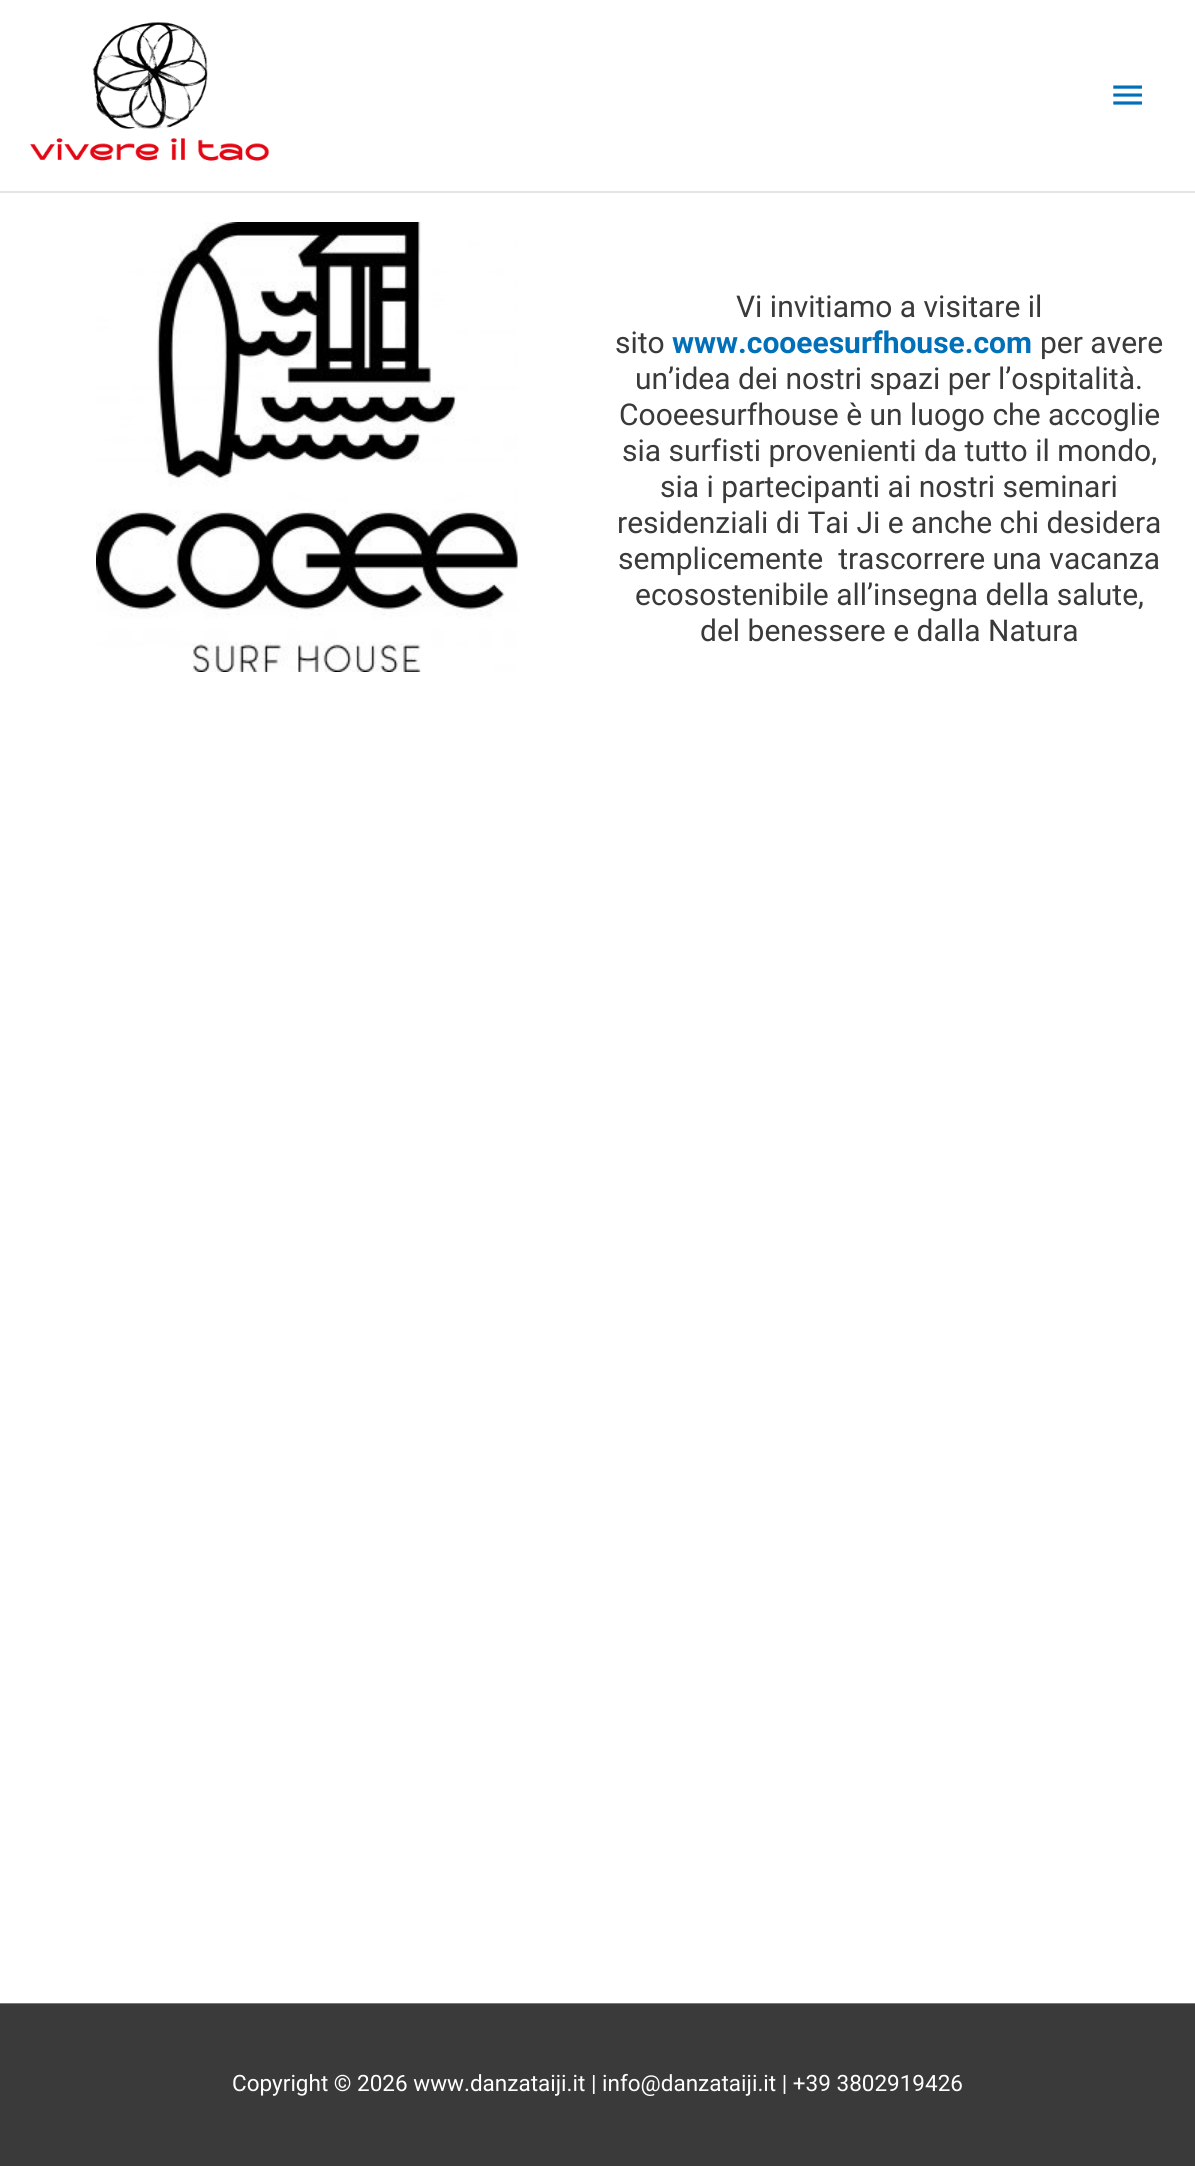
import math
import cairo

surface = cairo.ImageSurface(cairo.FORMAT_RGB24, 1195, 2166)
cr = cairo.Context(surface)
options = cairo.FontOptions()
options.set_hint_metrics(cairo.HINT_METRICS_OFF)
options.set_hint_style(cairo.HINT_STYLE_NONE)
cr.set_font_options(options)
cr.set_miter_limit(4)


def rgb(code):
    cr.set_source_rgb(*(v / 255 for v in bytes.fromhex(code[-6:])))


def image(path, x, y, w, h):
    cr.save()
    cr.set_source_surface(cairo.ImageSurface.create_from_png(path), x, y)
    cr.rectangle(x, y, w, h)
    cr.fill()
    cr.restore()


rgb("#ffffff")
cr.paint()
rgb("#e5e5e5")
cr.rectangle(0, 191, 1195, 2)
cr.fill()
image("img/1.png", 30, 22, 240, 139)
image("img/2.png", 1113, 85, 29, 20)
image("img/3.png", 96, 222, 422, 450)
rgb("#7a7a7a")
cr.rectangle(0, 2003, 1195, 1)
cr.fill()
rgb("#3a3a3a")
cr.rectangle(0, 2004, 1195, 162)
cr.fill()
cr.select_font_face("Roboto")
cr.set_font_size(30)
cr.move_to(736, 317)
cr.show_text("Vi invitiamo a visitare il")
cr.move_to(615, 353)
cr.show_text("sito")
cr.select_font_face("Roboto", cairo.FONT_SLANT_NORMAL, cairo.FONT_WEIGHT_BOLD)
rgb("#0170b9")
cr.move_to(672, 353)
cr.show_text("www.cooeesurfhouse.com")
cr.select_font_face("Roboto")
rgb("#3a3a3a")
for x, y, s in [
    (1040, 353, "per avere"),
    (635, 389, "un’idea dei nostri spazi per l’ospitalità."),
    (619, 425, "Cooeesurfhouse è un luogo che accoglie"),
    (622, 461, "sia surfisti provenienti da tutto il mondo,"),
    (660, 497, "sia i partecipanti ai nostri seminari"),
    (617, 533, "residenziali di Tai Ji e anche chi desidera"),
    (618, 569, "semplicemente  trascorrere una vacanza"),
    (635, 605, "ecosostenibile all’insegna della salute,"),
    (700, 641, "del benessere e dalla Natura"),
]:
    cr.move_to(x, y)
    cr.show_text(s)
cr.set_font_size(22.5)
rgb("#ffffff")
cr.move_to(232, 2091)
cr.show_text("Copyright © 2026 www.danzataiji.it | info@danzataiji.it | +39 3802919426")
surface.write_to_png("page.png")
